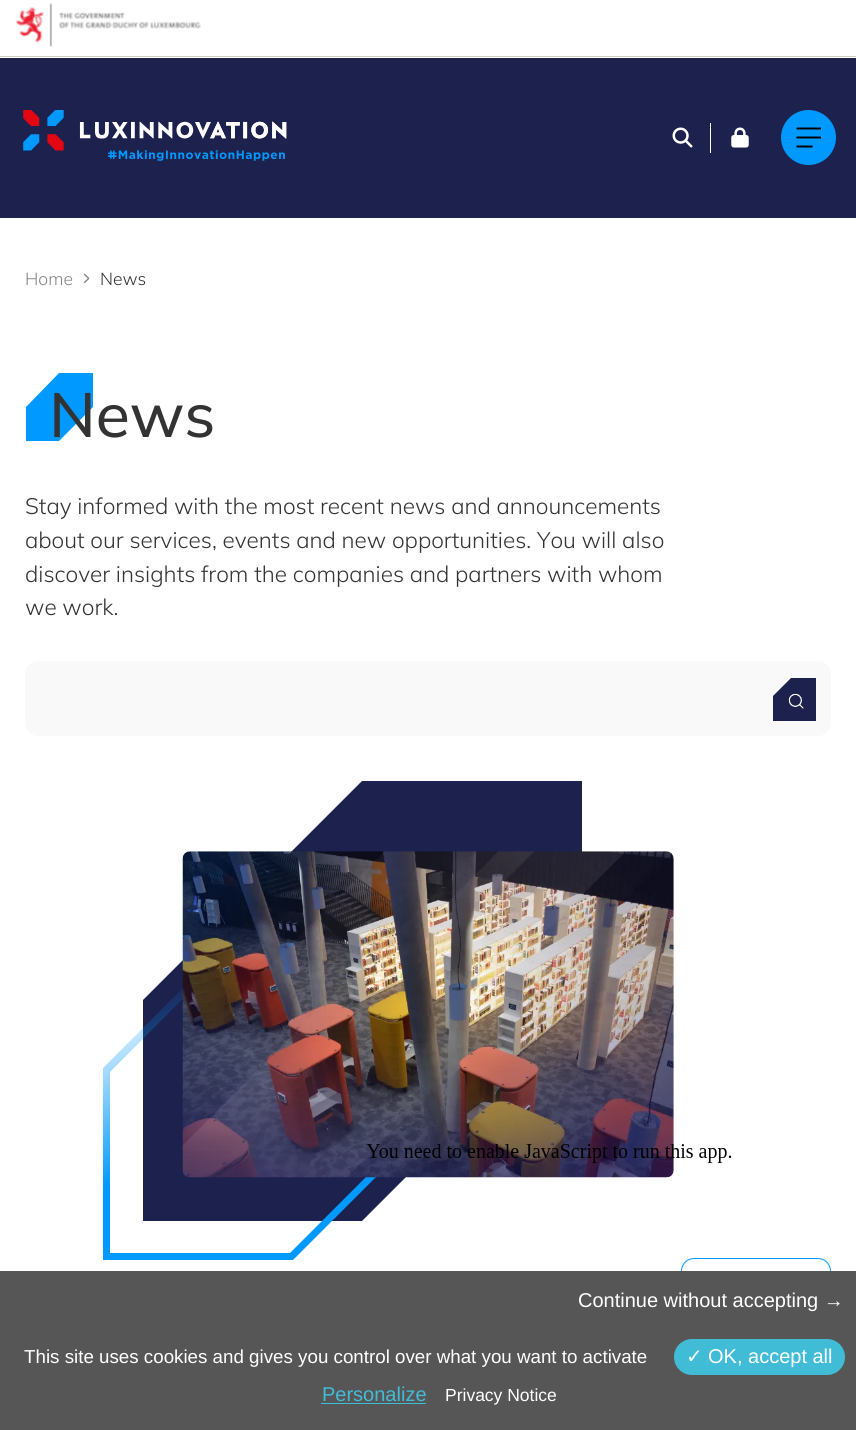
import math
import cairo

surface = cairo.ImageSurface(cairo.FORMAT_RGB24, 856, 1430)
cr = cairo.Context(surface)
options = cairo.FontOptions()
options.set_hint_metrics(cairo.HINT_METRICS_OFF)
options.set_hint_style(cairo.HINT_STYLE_NONE)
cr.set_font_options(options)
cr.set_miter_limit(4)


def rgb(code):
    cr.set_source_rgb(*(v / 255 for v in bytes.fromhex(code[-6:])))


def rrect(x, y, w, h, r):
    cr.new_sub_path()
    for i, (u, v) in enumerate([(x + w - r, y + h - r), (x + r, y + h - r), (x + r, y + r), (x + w - r, y + r)]):
        cr.arc(u, v, r, i * math.pi / 2, (i + 1) * math.pi / 2)
    cr.close_path()


def image(path, x, y, w, h):
    cr.save()
    cr.set_source_surface(cairo.ImageSurface.create_from_png(path), x, y)
    cr.rectangle(x, y, w, h)
    cr.fill()
    cr.restore()


rgb("#ffffff")
cr.paint()
rgb("#cccaca")
cr.rectangle(0, 56, 856, 1)
cr.fill()
image("img/1.png", 15, 3, 186, 44)
rgb("#1d214e")
cr.rectangle(0, 58, 856, 160)
cr.fill()
image("img/2.png", 23, 110, 264, 51)
image("img/3.png", 672, 127, 21, 21)
rgb("#ffffff")
cr.rectangle(710, 123, 1, 30)
cr.fill()
image("img/4.png", 731, 127, 18, 21)
rgb("#0099ff")
cr.arc(808.5, 137.5, 27.5, 0, 2 * math.pi)
cr.fill()
image("img/5.png", 796, 127, 25, 21)
image("img/6.png", 83, 273, 7, 11)
cr.new_path()
cr.move_to(93, 373)
cr.line_to(59, 373)
cr.line_to(26, 407)
cr.line_to(26, 441)
cr.line_to(59, 441)
cr.line_to(93, 407)
cr.close_path()
cr.fill()
rgb("#f9f9f9")
rrect(25, 661, 806, 75, 13)
cr.fill()
rgb("#1d214e")
cr.new_path()
cr.move_to(773, 696)
cr.line_to(791, 678)
cr.line_to(816, 678)
cr.line_to(816, 721)
cr.line_to(773, 721)
cr.close_path()
cr.fill()
image("img/7.png", 788, 693, 16, 16)
cr.save()
cr.rectangle(143, 781, 440, 440)
cr.clip()
cr.new_path()
cr.move_to(582, 781)
cr.line_to(362, 781)
cr.line_to(142, 1001)
cr.line_to(142, 1221)
cr.line_to(362, 1221)
cr.line_to(582, 1001)
cr.close_path()
cr.fill()
cr.restore()
cr.save()
cr.rectangle(103, 881, 378, 379)
cr.clip()
gradient = cairo.LinearGradient(305, 1099, 192, 843)
gradient.add_color_stop_rgba(0, 0, 0.6, 1, 1)
gradient.add_color_stop_rgba(0.08, 0, 0.6, 1, 0.86)
gradient.add_color_stop_rgba(0.35, 0, 0.6, 1, 0.4)
gradient.add_color_stop_rgba(0.53, 0, 0.6, 1, 0.11)
gradient.add_color_stop_rgba(0.61, 0, 0.6, 1, 0)
cr.set_source(gradient)
cr.new_path()
cr.move_to(293, 1260)
cr.line_to(102, 1260)
cr.line_to(102, 1069)
cr.line_to(290, 881)
cr.line_to(481, 881)
cr.line_to(481, 1072)
cr.close_path()
cr.move_to(110, 1253)
cr.line_to(290, 1253)
cr.line_to(474, 1069)
cr.line_to(474, 888)
cr.line_to(293, 888)
cr.line_to(110, 1072)
cr.close_path()
cr.fill()
cr.restore()
image("img/8.png", 182, 851, 492, 327)
rrect(681.5, 1258.5, 149, 57, 12.5)
rgb("#0099ff")
cr.set_line_width(1)
cr.stroke()
image("img/9.png", 366, 1144, 366, 19)
rgb("#575656")
cr.rectangle(0, 1271, 856, 159)
cr.fill()
rgb("#41bcd7")
rrect(674, 1339, 171, 36, 18)
cr.fill()
cr.rectangle(321, 1403, 105, 1)
cr.fill()
cr.select_font_face("Mulish Light")
cr.set_font_size(17.5)
rgb("#858585")
cr.move_to(25, 285)
cr.show_text("Home")
rgb("#333333")
cr.move_to(100, 285)
cr.show_text("News")
cr.select_font_face("Mulish Medium")
cr.set_font_size(62.5)
cr.move_to(49, 437)
cr.show_text("News")
cr.select_font_face("Mulish Light")
cr.set_font_size(22.5)
for x, y, s in [
    (25, 514, "Stay informed with the most recent news and announcements"),
    (25, 548, "about our services, events and new opportunities. You will also"),
    (25, 582, "discover insights from the companies and partners with whom"),
    (25, 615, "we work."),
]:
    cr.move_to(x, y)
    cr.show_text(s)
cr.select_font_face("Liberation Sans")
cr.set_font_size(20)
rgb("#ffffff")
cr.move_to(578, 1307)
cr.show_text("Continue without accepting →")
cr.set_font_size(18.75)
cr.move_to(24, 1363)
cr.show_text("This site uses cookies and gives you control over what you want to activate")
cr.select_font_face("DejaVu Sans")
cr.set_font_size(20)
cr.move_to(686, 1363)
cr.show_text("✓")
cr.select_font_face("Liberation Sans")
cr.move_to(708, 1363)
cr.show_text("OK, accept all")
rgb("#41bcd7")
cr.move_to(322, 1401)
cr.show_text("Personalize")
cr.set_font_size(17.5)
rgb("#ffffff")
cr.move_to(445, 1401)
cr.show_text("Privacy Notice")
surface.write_to_png("page.png")
